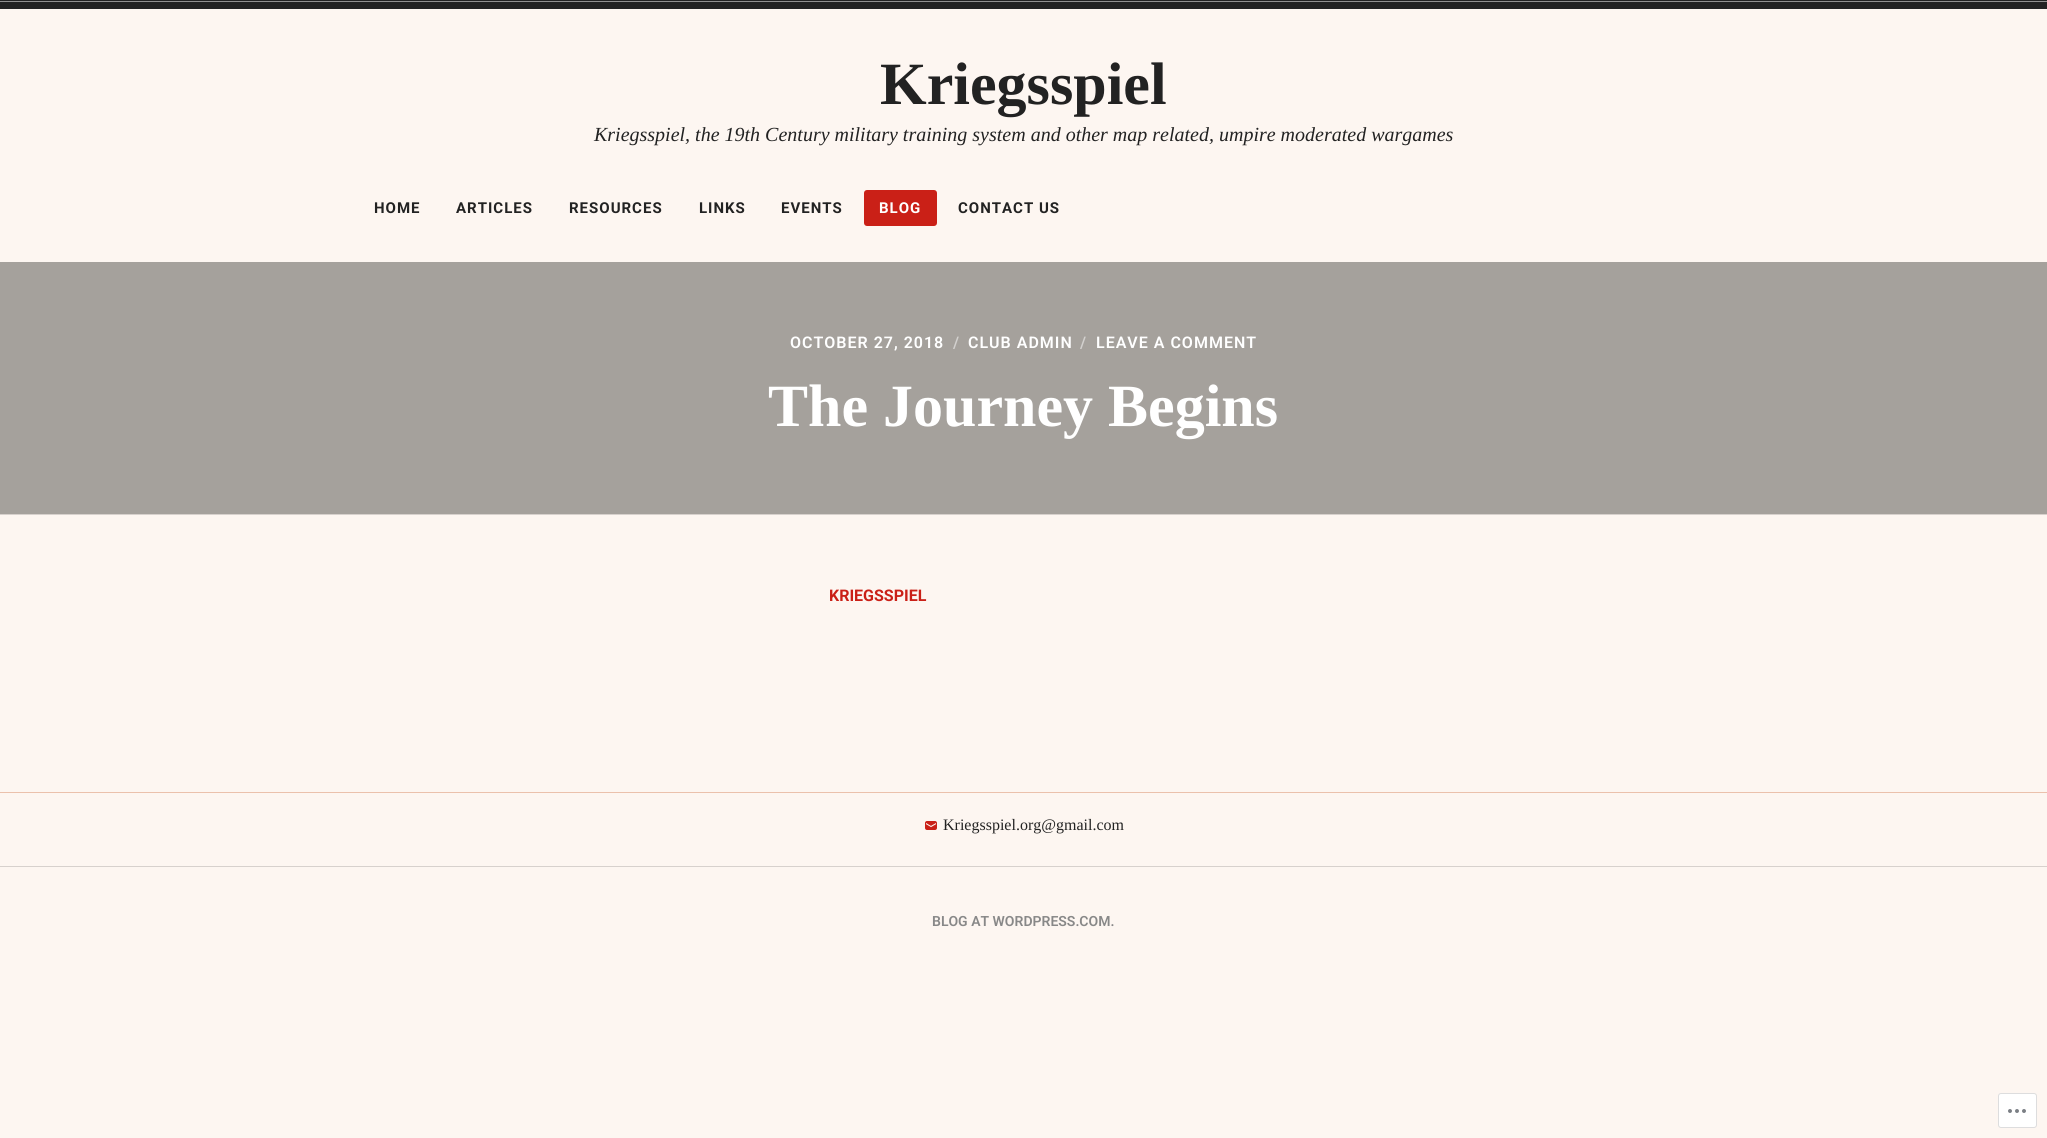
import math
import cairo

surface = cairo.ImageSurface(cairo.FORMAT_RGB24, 2047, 1138)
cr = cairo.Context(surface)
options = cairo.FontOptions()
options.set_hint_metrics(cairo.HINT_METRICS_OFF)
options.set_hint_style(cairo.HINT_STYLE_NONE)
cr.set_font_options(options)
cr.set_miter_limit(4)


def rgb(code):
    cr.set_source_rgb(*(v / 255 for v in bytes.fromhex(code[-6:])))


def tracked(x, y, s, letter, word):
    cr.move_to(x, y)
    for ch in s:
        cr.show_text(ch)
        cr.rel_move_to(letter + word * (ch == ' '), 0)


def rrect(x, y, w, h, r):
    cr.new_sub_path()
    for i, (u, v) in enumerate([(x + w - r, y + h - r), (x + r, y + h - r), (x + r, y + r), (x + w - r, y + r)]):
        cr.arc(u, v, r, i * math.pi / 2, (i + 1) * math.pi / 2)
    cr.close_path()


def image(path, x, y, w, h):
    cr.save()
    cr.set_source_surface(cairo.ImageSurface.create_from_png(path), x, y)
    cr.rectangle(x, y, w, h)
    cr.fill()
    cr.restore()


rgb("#fdf6f1")
cr.paint()
rgb("#222222")
cr.rectangle(0, 0, 2047, 9)
cr.fill()
rgb("#919191")
cr.rectangle(0, 1, 2047, 1)
cr.fill()
rgb("#ca2017")
rrect(864, 190, 73, 36, 3)
cr.fill()
for x, y, w, h, color in [
    (0, 262, 2047, 252, "#a5a19c"),
    (0, 514, 2047, 1, "#d7d1cd"),
    (0, 792, 2047, 1, "#ebc1ac"),
]:
    rgb(color)
    cr.rectangle(x, y, w, h)
    cr.fill()
image("img/1.png", 925, 821, 12, 9)
rgb("#d7d1cd")
cr.rectangle(0, 866, 2047, 1)
cr.fill()
rgb("#ffffff")
rrect(1998.5, 1093.5, 38, 34, 2.5)
cr.fill_preserve()
rgb("#ddddde")
cr.set_line_width(1)
cr.stroke()
image("img/2.png", 2008, 1109, 18, 4)
cr.select_font_face("Liberation Serif", cairo.FONT_SLANT_NORMAL, cairo.FONT_WEIGHT_BOLD)
cr.set_font_size(60)
rgb("#222222")
cr.move_to(880, 104)
cr.show_text("Kriegsspiel")
cr.select_font_face("Liberation Serif", cairo.FONT_SLANT_ITALIC)
cr.set_font_size(20)
cr.move_to(594, 141)
cr.show_text("Kriegsspiel, the 19th Century military training system and other map related, umpire moderated wargames")
cr.select_font_face("Roboto", cairo.FONT_SLANT_NORMAL, cairo.FONT_WEIGHT_BOLD)
cr.set_font_size(15)
for x, y, s in [
    (374, 213, "HOME"),
    (456, 213, "ARTICLES"),
    (569, 213, "RESOURCES"),
    (699, 213, "LINKS"),
    (781, 213, "EVENTS"),
]:
    tracked(x, y, s, 1, 0)
rgb("#ffffff")
tracked(879, 213, "BLOG", 1, 0)
rgb("#222222")
tracked(958, 213, "CONTACT US", 1, 0)
cr.select_font_face("Roboto SemiBold")
cr.set_font_size(16)
rgb("#ffffff")
tracked(790, 348, "OCTOBER 27, 2018", 1, 0)
rgb("#d2d0ce")
tracked(953, 348, "/", 1, 0)
rgb("#ffffff")
tracked(968, 348, "CLUB ADMIN", 1, 0)
rgb("#d2d0ce")
tracked(1080, 348, "/", 1, 0)
rgb("#ffffff")
tracked(1096, 348, "LEAVE A COMMENT", 1, 0)
cr.select_font_face("Liberation Serif", cairo.FONT_SLANT_NORMAL, cairo.FONT_WEIGHT_BOLD)
cr.set_font_size(60)
cr.move_to(768, 426)
cr.show_text("The Journey Begins")
cr.select_font_face("Roboto", cairo.FONT_SLANT_NORMAL, cairo.FONT_WEIGHT_BOLD)
cr.set_font_size(16)
rgb("#ca2017")
cr.move_to(829, 601)
cr.show_text("KRIEGSSPIEL")
cr.select_font_face("Liberation Serif")
rgb("#222222")
cr.move_to(943, 830)
cr.show_text("Kriegsspiel.org@gmail.com")
cr.select_font_face("Roboto SemiBold")
cr.set_font_size(14)
rgb("#888888")
cr.move_to(932, 926)
cr.show_text("BLOG AT WORDPRESS.COM.")
surface.write_to_png("page.png")
